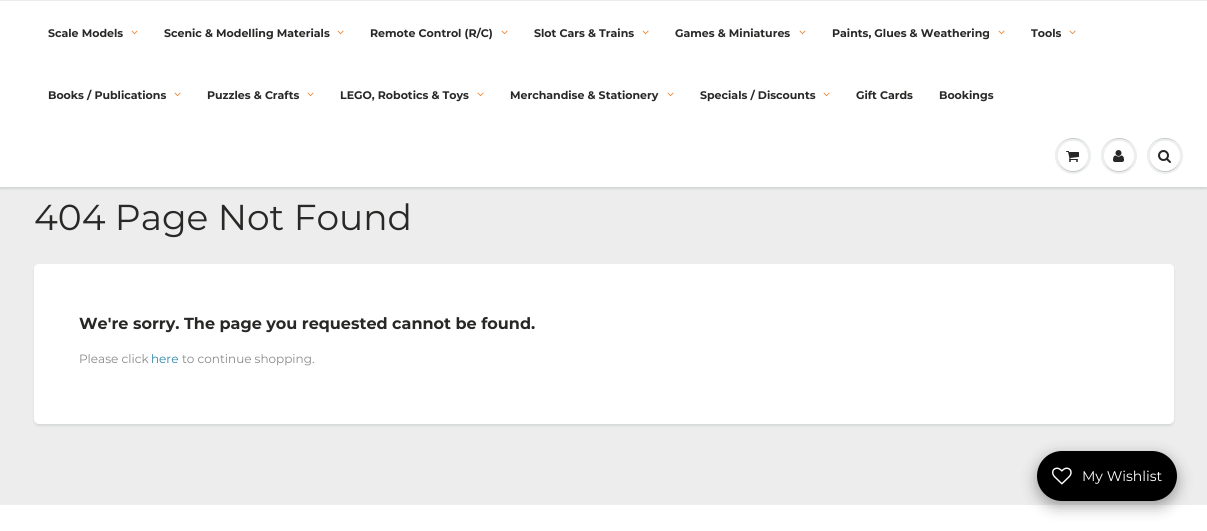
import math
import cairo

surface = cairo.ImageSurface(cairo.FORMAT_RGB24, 1207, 531)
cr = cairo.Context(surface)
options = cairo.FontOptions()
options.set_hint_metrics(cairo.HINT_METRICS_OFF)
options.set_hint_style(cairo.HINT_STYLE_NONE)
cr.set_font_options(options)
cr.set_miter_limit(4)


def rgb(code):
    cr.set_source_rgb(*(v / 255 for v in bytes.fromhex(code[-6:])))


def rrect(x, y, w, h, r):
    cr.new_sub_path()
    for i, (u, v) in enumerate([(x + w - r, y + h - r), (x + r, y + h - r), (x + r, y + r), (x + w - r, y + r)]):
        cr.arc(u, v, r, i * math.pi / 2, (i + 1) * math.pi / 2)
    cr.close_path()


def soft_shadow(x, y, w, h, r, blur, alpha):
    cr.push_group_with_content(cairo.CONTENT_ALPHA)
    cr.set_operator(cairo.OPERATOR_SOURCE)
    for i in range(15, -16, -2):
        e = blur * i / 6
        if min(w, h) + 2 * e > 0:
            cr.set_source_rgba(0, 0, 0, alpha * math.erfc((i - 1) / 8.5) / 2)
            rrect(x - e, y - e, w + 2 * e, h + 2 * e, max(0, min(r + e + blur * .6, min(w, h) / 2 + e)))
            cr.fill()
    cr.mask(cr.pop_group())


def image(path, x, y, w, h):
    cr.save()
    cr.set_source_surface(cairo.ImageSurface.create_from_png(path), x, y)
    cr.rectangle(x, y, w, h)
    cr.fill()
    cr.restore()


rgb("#ffffff")
cr.paint()
rgb("#ededed")
cr.rectangle(0, 187, 1207, 317)
cr.fill()
rgb("#0b191c")
soft_shadow(0, 2, 1207, 187, 0, 1, 0.12)
rgb("#ffffff")
cr.rectangle(0, 1, 1207, 186)
cr.fill()
rgb("#ebebeb")
cr.rectangle(0, 0, 1207, 1)
cr.fill()
image("img/1.png", 131, 30, 7, 5)
image("img/1.png", 337, 30, 7, 5)
image("img/1.png", 501, 30, 7, 5)
image("img/1.png", 642, 30, 7, 5)
image("img/1.png", 799, 30, 7, 5)
image("img/1.png", 998, 30, 7, 5)
image("img/1.png", 1069, 30, 7, 5)
image("img/1.png", 174, 92, 7, 5)
image("img/1.png", 307, 92, 7, 5)
image("img/1.png", 477, 92, 7, 5)
image("img/1.png", 667, 92, 7, 5)
image("img/1.png", 823, 92, 7, 5)
rgb("#edefef")
cr.arc(1073, 156, 18, 0, 2 * math.pi)
cr.fill()
rgb("#c9cbcb")
cr.new_path()
cr.move_to(1073, 139)
cr.curve_to(1085, 139, 1091, 147.5, 1091, 156.5)
cr.curve_to(1091, 153, 1090, 149, 1088, 146)
cr.curve_to(1078, 131, 1054.5, 138.5, 1055, 156.5)
cr.curve_to(1055, 147.5, 1061, 139, 1073, 139)
cr.close_path()
cr.fill()
cr.new_path()
cr.move_to(1088, 156.5)
cr.curve_to(1087.5, 175.5, 1058.5, 175.5, 1058, 156.5)
cr.curve_to(1057.5, 171.5, 1077, 178, 1085.5, 165.5)
cr.curve_to(1087, 163, 1088, 159.5, 1088, 156.5)
cr.close_path()
cr.fill()
rgb("#ffffff")
cr.arc(1073, 156, 15, 0, 2 * math.pi)
cr.fill()
cr.new_path()
cr.move_to(1073, 142)
cr.curve_to(1083, 142, 1088, 149, 1088, 156.5)
cr.curve_to(1088, 153.5, 1087, 150, 1085.5, 147.5)
cr.curve_to(1077, 135, 1057.5, 141.5, 1058, 156.5)
cr.curve_to(1058, 149, 1063, 142, 1073, 142)
cr.close_path()
cr.fill()
image("img/2.png", 1066, 151, 13, 11)
rgb("#edefef")
cr.arc(1119, 156, 18, 0, 2 * math.pi)
cr.fill()
rgb("#c9cbcb")
cr.new_path()
cr.move_to(1119, 139)
cr.curve_to(1131, 139, 1137, 147.5, 1137, 156.5)
cr.curve_to(1137, 153, 1136, 149, 1134, 146)
cr.curve_to(1124, 131, 1100.5, 138.5, 1101, 156.5)
cr.curve_to(1101, 147.5, 1107, 139, 1119, 139)
cr.close_path()
cr.fill()
cr.new_path()
cr.move_to(1134, 156.5)
cr.curve_to(1133.5, 175.5, 1104.5, 175.5, 1104, 156.5)
cr.curve_to(1103.5, 171.5, 1123, 178, 1131.5, 165.5)
cr.curve_to(1133, 163, 1134, 159.5, 1134, 156.5)
cr.close_path()
cr.fill()
rgb("#ffffff")
cr.arc(1119, 156, 15, 0, 2 * math.pi)
cr.fill()
cr.new_path()
cr.move_to(1119, 142)
cr.curve_to(1129, 142, 1134, 149, 1134, 156.5)
cr.curve_to(1134, 153.5, 1133, 150, 1131.5, 147.5)
cr.curve_to(1123, 135, 1103.5, 141.5, 1104, 156.5)
cr.curve_to(1104, 149, 1109, 142, 1119, 142)
cr.close_path()
cr.fill()
image("img/3.png", 1113, 150, 11, 12)
rgb("#edefef")
cr.arc(1165, 156, 18, 0, 2 * math.pi)
cr.fill()
rgb("#c9cbcb")
cr.new_path()
cr.move_to(1165, 139)
cr.curve_to(1177, 139, 1183, 147.5, 1183, 156.5)
cr.curve_to(1183, 153, 1182, 149, 1180, 146)
cr.curve_to(1170, 131, 1146.5, 138.5, 1147, 156.5)
cr.curve_to(1147, 147.5, 1153, 139, 1165, 139)
cr.close_path()
cr.fill()
cr.new_path()
cr.move_to(1180, 156.5)
cr.curve_to(1179.5, 175.5, 1150.5, 175.5, 1150, 156.5)
cr.curve_to(1149.5, 171.5, 1169, 178, 1177.5, 165.5)
cr.curve_to(1179, 163, 1180, 159.5, 1180, 156.5)
cr.close_path()
cr.fill()
rgb("#ffffff")
cr.arc(1165, 156, 15, 0, 2 * math.pi)
cr.fill()
cr.new_path()
cr.move_to(1165, 142)
cr.curve_to(1175, 142, 1180, 149, 1180, 156.5)
cr.curve_to(1180, 153.5, 1179, 150, 1177.5, 147.5)
cr.curve_to(1169, 135, 1149.5, 141.5, 1150, 156.5)
cr.curve_to(1150, 149, 1155, 142, 1165, 142)
cr.close_path()
cr.fill()
image("img/4.png", 1158, 150, 13, 13)
rgb("#0b191c")
soft_shadow(34, 266, 1140, 160, 5, 1, 0.1)
rgb("#ffffff")
rrect(34, 264, 1140, 160, 5)
cr.fill()
rgb("#ecefef")
cr.rectangle(0, 504, 1207, 1)
cr.fill()
rgb("#000000")
soft_shadow(1037, 456, 140, 50, 25, 7.5, 0.35)
rgb("#000000")
rrect(1037, 451, 140, 50, 25)
cr.fill()
image("img/5.png", 1052, 467, 20, 18)
cr.select_font_face("Montserrat", cairo.FONT_SLANT_NORMAL, cairo.FONT_WEIGHT_BOLD)
cr.set_font_size(11)
rgb("#282827")
for x, y, s in [
    (48, 37, "Scale Models"),
    (164, 37, "Scenic & Modelling Materials"),
    (370, 37, "Remote Control (R/C)"),
    (534, 37, "Slot Cars & Trains"),
    (675, 37, "Games & Miniatures"),
    (832, 37, "Paints, Glues & Weathering"),
    (1031, 37, "Tools"),
    (48, 99, "Books / Publications"),
    (207, 99, "Puzzles & Crafts"),
    (340, 99, "LEGO, Robotics & Toys"),
    (510, 99, "Merchandise & Stationery"),
    (700, 99, "Specials / Discounts"),
    (856, 99, "Gift Cards"),
    (939, 99, "Bookings"),
]:
    cr.move_to(x, y)
    cr.show_text(s)
cr.select_font_face("Montserrat")
cr.set_font_size(36)
cr.move_to(34, 230)
cr.show_text("404 Page Not Found")
cr.select_font_face("Montserrat", cairo.FONT_SLANT_NORMAL, cairo.FONT_WEIGHT_BOLD)
cr.set_font_size(16)
cr.move_to(79, 329)
cr.show_text("We're sorry. The page you requested cannot be found.")
cr.select_font_face("Montserrat")
cr.set_font_size(12)
rgb("#898989")
cr.move_to(79, 363)
cr.show_text("Please click")
rgb("#2d85a9")
cr.move_to(151, 363)
cr.show_text("here")
rgb("#898989")
cr.move_to(182, 363)
cr.show_text("to continue shopping.")
cr.set_font_size(14)
rgb("#ffffff")
cr.move_to(1082, 481)
cr.show_text("My Wishlist")
surface.write_to_png("page.png")
